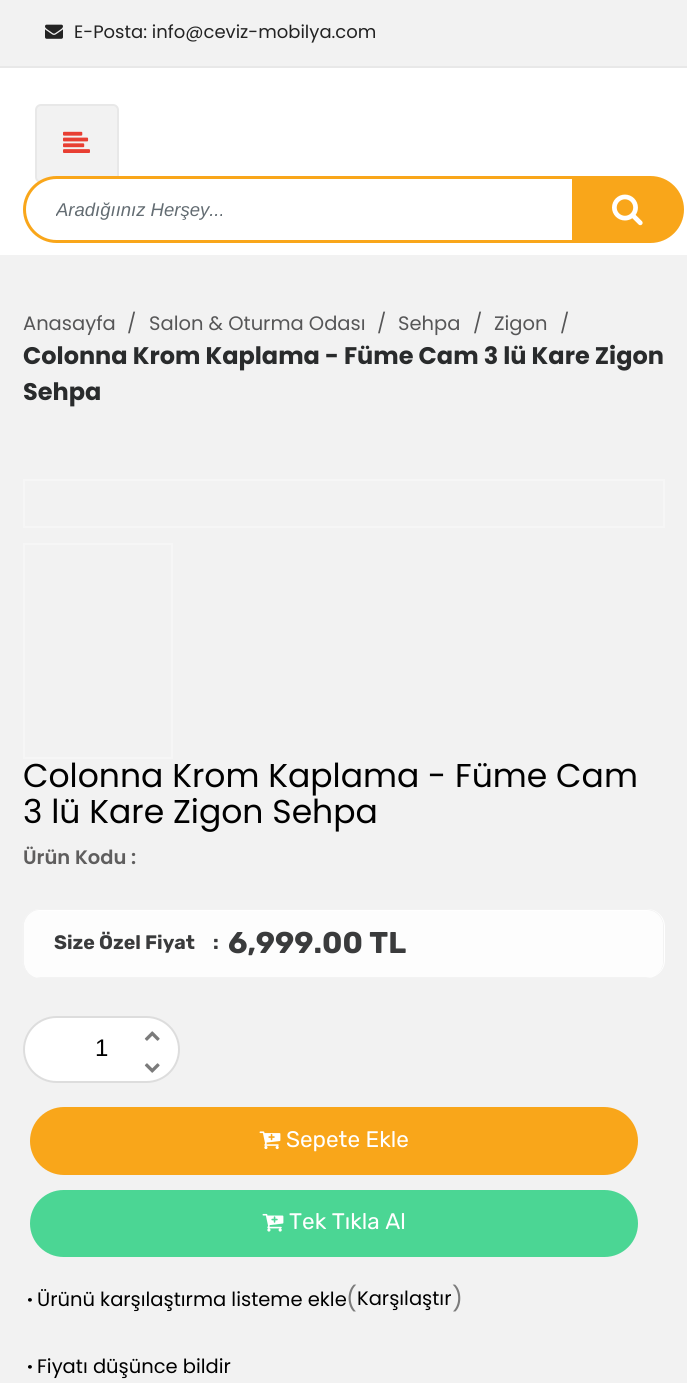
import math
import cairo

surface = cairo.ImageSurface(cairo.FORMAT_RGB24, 687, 1383)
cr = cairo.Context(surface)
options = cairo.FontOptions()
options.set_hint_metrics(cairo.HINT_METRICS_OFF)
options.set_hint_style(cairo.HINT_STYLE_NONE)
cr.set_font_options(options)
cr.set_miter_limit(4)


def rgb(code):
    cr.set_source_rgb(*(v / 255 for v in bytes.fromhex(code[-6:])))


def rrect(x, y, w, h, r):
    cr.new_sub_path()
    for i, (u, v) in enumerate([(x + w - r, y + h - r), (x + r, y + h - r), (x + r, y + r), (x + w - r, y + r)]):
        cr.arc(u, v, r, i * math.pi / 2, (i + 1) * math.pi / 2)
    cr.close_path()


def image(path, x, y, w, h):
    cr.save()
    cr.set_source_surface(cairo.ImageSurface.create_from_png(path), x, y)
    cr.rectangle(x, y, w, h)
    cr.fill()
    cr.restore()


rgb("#ffffff")
cr.paint()
rgb("#f2f2f2")
cr.rectangle(0, 0, 687, 66)
cr.fill()
rgb("#e8e8e8")
cr.rectangle(0, 66, 687, 2)
cr.fill()
image("img/1.png", 45, 24, 18, 15)
rgb("#f2f2f2")
rrect(36, 105, 82, 77, 5)
cr.fill_preserve()
rgb("#e8e8e8")
cr.stroke()
image("img/2.png", 63, 131, 27, 22)
rgb("#ffffff")
cr.new_path()
cr.move_to(56.5, 177.5)
cr.line_to(598.5, 177.5)
cr.line_to(598.5, 241.5)
cr.line_to(56.5, 241.5)
cr.curve_to(39, 241.5, 24.5, 227, 24.5, 209.5)
cr.curve_to(24.5, 192, 39, 177.5, 56.5, 177.5)
cr.close_path()
cr.fill_preserve()
rgb("#f9a61a")
cr.set_line_width(3)
cr.stroke()
cr.new_path()
cr.move_to(572, 176)
cr.line_to(650.5, 176)
cr.curve_to(669, 176, 684, 191, 684, 209.5)
cr.curve_to(684, 228, 669, 243, 650.5, 243)
cr.line_to(572, 243)
cr.close_path()
cr.fill()
image("img/3.png", 612, 194, 31, 32)
rgb("#f2f2f2")
cr.rectangle(0, 255, 687, 1128)
cr.fill()
cr.rectangle(24, 480, 640, 47)
rgb("#f6f6f6")
cr.set_line_width(2)
cr.stroke()
cr.rectangle(24, 544, 148, 214)
cr.stroke()
rgb("#ffffff")
rrect(23, 909, 642, 69, 18)
cr.fill()
rgb("#f3f3f3")
cr.set_fill_rule(cairo.FILL_RULE_EVEN_ODD)
cr.new_path()
cr.move_to(40, 909)
cr.line_to(646, 909)
cr.curve_to(656, 909, 664, 917, 664, 927)
cr.line_to(664, 960)
cr.curve_to(664, 970, 656, 978, 646, 978)
cr.line_to(40, 978)
cr.curve_to(31, 978, 22, 970, 22, 960)
cr.line_to(22, 927)
cr.curve_to(22, 917, 31, 909, 40, 909)
cr.close_path()
cr.move_to(40, 910)
cr.line_to(646, 910)
cr.curve_to(656, 910, 663, 918, 663, 927)
cr.line_to(663, 960)
cr.curve_to(663, 970, 656, 978, 646, 978)
cr.line_to(40, 978)
cr.curve_to(31, 978, 24, 970, 24, 960)
cr.line_to(24, 927)
cr.curve_to(24, 918, 31, 910, 40, 910)
cr.close_path()
cr.fill()
rgb("#fdfdfd")
cr.set_fill_rule(cairo.FILL_RULE_WINDING)
cr.new_path()
cr.move_to(24, 927)
cr.line_to(24, 960)
cr.curve_to(24, 970, 31, 978, 40, 978)
cr.line_to(646, 978)
cr.curve_to(656, 978, 663, 970, 663, 960)
cr.line_to(663, 927)
cr.curve_to(663, 919, 658, 913, 651, 911)
cr.line_to(36, 911)
cr.curve_to(29, 913, 24, 919, 24, 927)
cr.close_path()
cr.fill()
rgb("#f3f3f3")
cr.new_path()
cr.move_to(652, 977)
cr.line_to(646, 978)
cr.line_to(40, 978)
cr.line_to(35, 977)
cr.close_path()
cr.fill()
rgb("#ffffff")
rrect(24, 1017, 155, 65, 32.5)
cr.fill_preserve()
rgb("#dddddd")
cr.stroke()
image("img/4.png", 144, 1031, 16, 10)
image("img/5.png", 144, 1063, 16, 10)
rgb("#f9a61a")
rrect(30, 1107, 608, 68, 34)
cr.fill()
image("img/6.png", 259, 1131, 22, 19)
rgb("#4bd694")
rrect(30, 1190, 608, 67, 33.5)
cr.fill()
image("img/7.png", 262, 1213, 22, 19)
cr.select_font_face("Poppins")
cr.set_font_size(18)
rgb("#232323")
cr.move_to(74, 38)
cr.show_text("E-Posta: info@ceviz-mobilya.com")
cr.save()
cr.rectangle(56, 197, 459, 24)
cr.clip()
cr.select_font_face("Liberation Sans", cairo.FONT_SLANT_ITALIC)
cr.set_font_size(18.5)
rgb("#636c72")
cr.move_to(56, 216)
cr.show_text("Aradığıınız Herşey...")
cr.restore()
cr.set_font_size(19.5)
rgb("#565657")
for x, y, s in [
    (23, 330, "Anasayfa"),
    (127, 330, "/"),
    (149, 330, "Salon & Oturma Odası"),
    (377, 330, "/"),
    (398, 330, "Sehpa"),
    (473, 330, "/"),
    (494, 330, "Zigon"),
    (560, 330, "/"),
]:
    cr.move_to(x, y)
    cr.show_text(s)
cr.select_font_face("Poppins", cairo.FONT_SLANT_NORMAL, cairo.FONT_WEIGHT_BOLD)
cr.set_font_size(24)
rgb("#292b2c")
cr.move_to(23, 364)
cr.show_text("Colonna Krom Kaplama - Füme Cam 3 lü Kare Zigon")
cr.move_to(23, 400)
cr.show_text("Sehpa")
cr.select_font_face("Poppins")
cr.set_font_size(33)
rgb("#000000")
cr.move_to(23, 787)
cr.show_text("Colonna Krom Kaplama - Füme Cam")
cr.move_to(23, 823)
cr.show_text("3 lü Kare Zigon Sehpa")
cr.select_font_face("Poppins SemiBold")
cr.set_font_size(19.5)
rgb("#5f5e5e")
cr.move_to(23, 864)
cr.show_text("Ürün Kodu :")
cr.select_font_face("Rubik", cairo.FONT_SLANT_NORMAL, cairo.FONT_WEIGHT_BOLD)
rgb("#3a3b3c")
cr.move_to(54, 949)
cr.show_text("Size Özel Fiyat")
cr.move_to(213, 949)
cr.show_text(":")
cr.set_font_size(30)
cr.move_to(228, 953)
cr.show_text("6,999.00 TL")
cr.select_font_face("Liberation Sans")
cr.set_font_size(24)
rgb("#000000")
cr.move_to(95, 1056)
cr.show_text("1")
cr.select_font_face("Rubik")
cr.set_font_size(22.5)
rgb("#ffffff")
cr.move_to(286, 1147)
cr.show_text("Sepete Ekle")
cr.move_to(289, 1229)
cr.show_text("Tek Tıkla Al")
cr.select_font_face("Poppins", cairo.FONT_SLANT_NORMAL, cairo.FONT_WEIGHT_BOLD)
cr.set_font_size(19.5)
rgb("#000000")
cr.move_to(27, 1306)
cr.show_text("·")
cr.select_font_face("Poppins")
cr.move_to(37, 1306)
cr.show_text("Ürünü karşılaştırma listeme ekle")
cr.set_font_size(24)
rgb("#7b7b7b")
cr.move_to(346, 1307)
cr.show_text("(")
cr.set_font_size(19.5)
rgb("#000000")
cr.move_to(357, 1305)
cr.show_text("Karşılaştır")
cr.set_font_size(24)
rgb("#7b7b7b")
cr.move_to(452, 1307)
cr.show_text(")")
cr.select_font_face("Poppins", cairo.FONT_SLANT_NORMAL, cairo.FONT_WEIGHT_BOLD)
cr.set_font_size(19.5)
rgb("#000000")
cr.move_to(27, 1373)
cr.show_text("·")
cr.select_font_face("Poppins")
cr.move_to(37, 1373)
cr.show_text("Fiyatı düşünce bildir")
surface.write_to_png("page.png")
